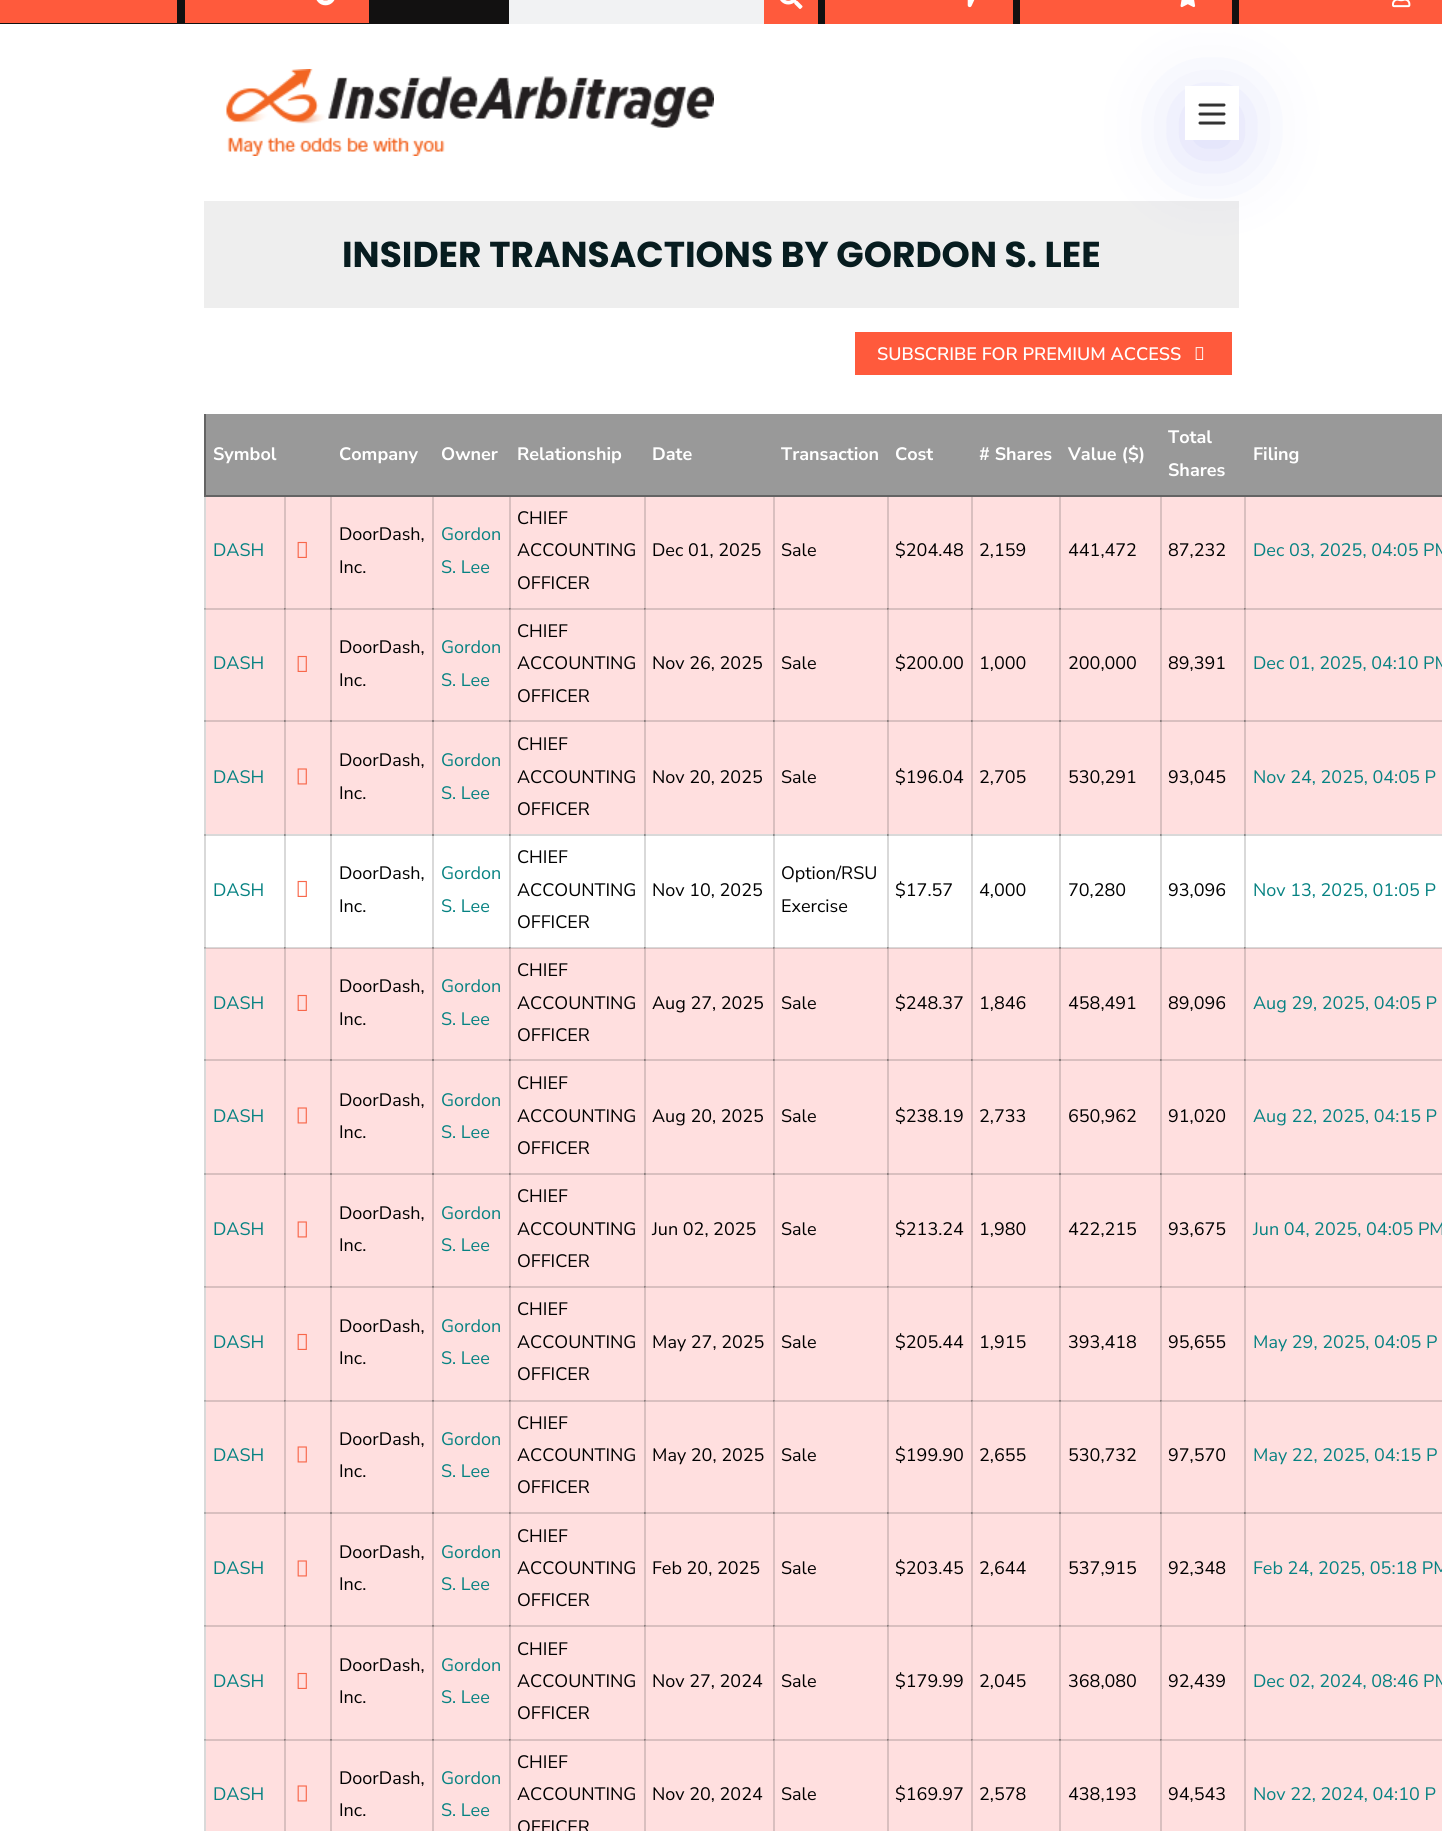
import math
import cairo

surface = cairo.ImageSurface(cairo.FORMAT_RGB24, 1442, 1831)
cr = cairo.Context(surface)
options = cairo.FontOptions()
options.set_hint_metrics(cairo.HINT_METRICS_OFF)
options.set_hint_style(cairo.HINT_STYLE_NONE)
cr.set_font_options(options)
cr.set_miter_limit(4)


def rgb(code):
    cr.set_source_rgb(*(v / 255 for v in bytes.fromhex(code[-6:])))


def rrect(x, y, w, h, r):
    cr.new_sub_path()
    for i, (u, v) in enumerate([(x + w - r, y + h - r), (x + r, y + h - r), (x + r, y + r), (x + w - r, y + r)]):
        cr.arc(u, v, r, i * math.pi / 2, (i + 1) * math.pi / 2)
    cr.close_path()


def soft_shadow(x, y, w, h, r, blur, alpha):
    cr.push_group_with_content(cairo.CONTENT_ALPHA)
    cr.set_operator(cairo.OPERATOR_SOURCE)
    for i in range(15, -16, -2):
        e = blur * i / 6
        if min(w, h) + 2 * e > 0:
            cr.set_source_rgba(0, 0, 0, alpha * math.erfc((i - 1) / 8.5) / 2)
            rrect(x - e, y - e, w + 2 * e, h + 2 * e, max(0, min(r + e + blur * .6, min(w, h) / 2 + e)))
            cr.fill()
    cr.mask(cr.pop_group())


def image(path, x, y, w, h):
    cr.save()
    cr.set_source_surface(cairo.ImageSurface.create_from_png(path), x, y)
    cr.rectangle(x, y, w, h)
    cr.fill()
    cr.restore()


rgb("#ffffff")
cr.paint()
for x, y, w, h, color in [
    (204, 834, 81, 2, "#d9d9d9"),
    (284, 834, 2, 114, "#d9d9d9"),
    (284, 834, 48, 2, "#d9d9d9"),
    (284, 834, 2, 2, "#a0a0a0"),
    (284, 834, 1, 2, "#8b8b8b"),
    (330, 834, 2, 114, "#d9d9d9"),
    (330, 834, 104, 2, "#d9d9d9"),
    (330, 834, 2, 2, "#8b8b8b"),
    (432, 834, 2, 114, "#d9d9d9"),
    (432, 834, 78, 2, "#d9d9d9"),
    (432, 834, 2, 2, "#8b8b8b"),
    (509, 834, 2, 114, "#d9d9d9"),
    (509, 834, 136, 2, "#d9d9d9"),
    (509, 834, 2, 2, "#a0a0a0"),
    (509, 834, 1, 2, "#8b8b8b"),
    (644, 834, 2, 114, "#d9d9d9"),
    (644, 834, 130, 2, "#d9d9d9"),
    (644, 834, 2, 2, "#a0a0a0"),
    (644, 834, 1, 2, "#8b8b8b"),
    (773, 834, 2, 114, "#d9d9d9"),
    (773, 834, 115, 2, "#d9d9d9"),
    (773, 834, 2, 2, "#a0a0a0"),
    (773, 834, 1, 2, "#8b8b8b"),
    (887, 834, 2, 114, "#d9d9d9"),
    (887, 834, 85, 2, "#d9d9d9"),
    (887, 834, 2, 2, "#a0a0a0"),
    (887, 834, 1, 2, "#8b8b8b"),
    (971, 834, 2, 114, "#d9d9d9"),
    (971, 834, 90, 2, "#d9d9d9"),
    (971, 834, 2, 2, "#a0a0a0"),
    (971, 834, 1, 2, "#8b8b8b"),
    (1059, 834, 2, 114, "#d9d9d9"),
    (1059, 834, 102, 2, "#d9d9d9"),
    (1059, 834, 2, 2, "#8b8b8b"),
    (1160, 834, 2, 114, "#d9d9d9"),
    (1160, 834, 85, 2, "#d9d9d9"),
    (1160, 834, 2, 2, "#a0a0a0"),
    (1160, 834, 1, 2, "#8b8b8b"),
    (1244, 834, 2, 114, "#d9d9d9"),
    (204, 947, 1238, 1, "#d9d9d9"),
    (284, 947, 2, 1, "#a0a0a0"),
    (284, 947, 1, 1, "#8b8b8b"),
    (330, 947, 2, 1, "#8b8b8b"),
    (432, 947, 2, 1, "#8b8b8b"),
    (509, 947, 2, 1, "#a0a0a0"),
    (509, 947, 1, 1, "#8b8b8b"),
    (644, 947, 2, 1, "#a0a0a0"),
    (644, 947, 1, 1, "#8b8b8b"),
    (773, 947, 2, 1, "#a0a0a0"),
    (773, 947, 1, 1, "#8b8b8b"),
    (887, 947, 2, 1, "#a0a0a0"),
    (887, 947, 1, 1, "#8b8b8b"),
    (971, 947, 2, 1, "#a0a0a0"),
    (971, 947, 1, 1, "#8b8b8b"),
    (1059, 947, 2, 1, "#8b8b8b"),
    (1160, 947, 2, 1, "#a0a0a0"),
    (1160, 947, 1, 1, "#8b8b8b"),
    (1244, 947, 2, 1, "#a0a0a0"),
    (1244, 947, 1, 1, "#8b8b8b"),
    (204, 495, 2, 1336, "#d9d9d9"),
    (204, 609, 2, 1, "#b9b9b9"),
    (204, 608, 2, 1, "#acacac"),
    (204, 720, 2, 2, "#acacac"),
    (204, 834, 2, 2, "#acacac"),
    (204, 948, 2, 1, "#b9b9b9"),
    (204, 947, 2, 1, "#acacac"),
    (204, 1059, 2, 2, "#acacac"),
    (204, 1173, 2, 2, "#acacac"),
    (204, 1287, 2, 1, "#b9b9b9"),
    (204, 1286, 2, 1, "#acacac"),
    (204, 1401, 2, 1, "#b9b9b9"),
    (204, 1400, 2, 1, "#acacac"),
    (204, 1512, 2, 2, "#acacac"),
    (204, 1626, 2, 1, "#b9b9b9"),
    (204, 1625, 2, 1, "#acacac"),
    (204, 1740, 2, 1, "#b9b9b9"),
    (204, 1739, 2, 1, "#acacac"),
    (0, 0, 1239, 24, "#121111"),
    (0, 0, 177, 23, "#ff5a3c"),
    (185, 0, 184, 23, "#ff5a3c"),
]:
    rgb(color)
    cr.rectangle(x, y, w, h)
    cr.fill()
image("img/1.png", 316, 0, 19, 6)
rgb("#f1f2f3")
cr.rectangle(509, 0, 255, 24)
cr.fill()
rgb("#ff5a3c")
cr.rectangle(764, 0, 54, 24)
cr.fill()
image("img/2.png", 780, 0, 23, 9)
cr.rectangle(825, 0, 188, 24)
cr.fill()
image("img/3.png", 967, 0, 8, 8)
cr.rectangle(1020, 0, 212, 24)
cr.fill()
image("img/4.png", 1180, 0, 16, 8)
cr.rectangle(1239, 0, 203, 24)
cr.fill()
image("img/5.png", 1392, 0, 19, 8)
image("img/6.png", 226, 69, 488, 87)
rgb("#eeeeee")
cr.rectangle(204, 201, 1035, 107)
cr.fill()
cr.save()
cr.set_fill_rule(cairo.FILL_RULE_EVEN_ODD)
cr.new_path()
cr.move_to(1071, 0)
cr.line_to(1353, 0)
cr.line_to(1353, 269)
cr.line_to(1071, 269)
cr.close_path()
cr.move_to(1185, 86)
cr.line_to(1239, 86)
cr.line_to(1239, 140)
cr.line_to(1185, 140)
cr.close_path()
cr.clip()
rgb("#2e38dc")
soft_shadow(1185, 101, 54, 54, 0, 37.5, 0.2)
cr.restore()
cr.new_path()
cr.move_to(1200, 105)
cr.line_to(1224, 105)
cr.move_to(1200, 114)
cr.line_to(1224, 114)
cr.move_to(1200, 123)
cr.line_to(1224, 123)
rgb("#333333")
cr.set_line_width(3)
cr.set_line_cap(cairo.LINE_CAP_ROUND)
cr.set_line_join(cairo.LINE_JOIN_ROUND)
cr.stroke()
rgb("#ff5a3c")
cr.rectangle(855, 332, 377, 43)
cr.fill()
image("img/7.png", 1195, 347, 9, 13)
for x, y, w, h, color in [
    (206, 414, 1236, 81, "#999999"),
    (284, 495, 2, 339, "#d9bfbf"),
    (330, 495, 2, 113, "#d9bfbf"),
    (432, 495, 2, 113, "#d9bfbf"),
    (509, 495, 2, 339, "#d9bfbf"),
    (644, 495, 2, 113, "#d9bfbf"),
    (773, 495, 2, 339, "#d9bfbf"),
    (887, 495, 2, 339, "#d9bfbf"),
    (971, 495, 2, 113, "#d9bfbf"),
    (1059, 495, 2, 113, "#d9bfbf"),
    (1160, 495, 2, 339, "#d9bfbf"),
    (1244, 495, 2, 113, "#d9bfbf"),
    (204, 495, 1238, 2, "#646464"),
    (204, 414, 2, 83, "#646464"),
    (206, 497, 78, 111, "#ffdfdf"),
    (286, 497, 44, 111, "#ffdfdf"),
]:
    rgb(color)
    cr.rectangle(x, y, w, h)
    cr.fill()
image("img/8.png", 297, 541, 10, 17)
for x, y, w, h, color in [
    (332, 497, 100, 111, "#ffdfdf"),
    (434, 497, 75, 111, "#ffdfdf"),
    (511, 497, 133, 111, "#ffdfdf"),
    (646, 497, 127, 111, "#ffdfdf"),
    (775, 497, 112, 111, "#ffdfdf"),
    (889, 497, 82, 111, "#ffdfdf"),
    (973, 497, 86, 111, "#ffdfdf"),
    (1061, 497, 99, 111, "#ffdfdf"),
    (1162, 497, 82, 111, "#ffdfdf"),
    (1246, 497, 196, 111, "#ffdfdf"),
    (206, 610, 78, 110, "#ffdfdf"),
    (206, 608, 439, 2, "#d9bfbf"),
    (206, 720, 78, 2, "#d9bfbf"),
    (286, 610, 44, 110, "#ffdfdf"),
    (284, 609, 2, 1, "#b9a4a4"),
    (284, 608, 2, 1, "#a08f8f"),
    (284, 608, 1, 2, "#a08f8f"),
    (284, 608, 1, 1, "#8b7e7e"),
    (330, 608, 2, 226, "#d9bfbf"),
    (330, 609, 2, 1, "#a08f8f"),
    (330, 608, 2, 1, "#8b7e7e"),
    (284, 720, 48, 2, "#d9bfbf"),
    (284, 720, 2, 2, "#a08f8f"),
    (284, 720, 1, 2, "#8b7e7e"),
    (330, 720, 2, 2, "#8b7e7e"),
]:
    rgb(color)
    cr.rectangle(x, y, w, h)
    cr.fill()
image("img/8.png", 297, 655, 10, 17)
for x, y, w, h, color in [
    (332, 610, 100, 110, "#ffdfdf"),
    (432, 608, 2, 226, "#d9bfbf"),
    (432, 609, 2, 1, "#a08f8f"),
    (432, 608, 2, 1, "#8b7e7e"),
    (332, 720, 177, 2, "#d9bfbf"),
    (432, 720, 2, 2, "#8b7e7e"),
    (434, 610, 75, 110, "#ffdfdf"),
    (511, 610, 133, 110, "#ffdfdf"),
    (509, 609, 2, 1, "#b9a4a4"),
    (509, 608, 2, 1, "#a08f8f"),
    (509, 608, 1, 2, "#a08f8f"),
    (509, 608, 1, 1, "#8b7e7e"),
    (644, 608, 2, 114, "#d9bfbf"),
    (644, 608, 1, 2, "#a08f8f"),
    (644, 608, 1, 1, "#8b7e7e"),
    (509, 720, 378, 2, "#d9bfbf"),
    (509, 720, 2, 2, "#a08f8f"),
    (509, 720, 1, 2, "#8b7e7e"),
    (644, 720, 1, 2, "#8b7e7e"),
    (646, 610, 127, 110, "#ffdfdf"),
    (645, 608, 327, 2, "#d9bfbf"),
    (645, 608, 1, 2, "#b9a4a4"),
    (645, 608, 1, 1, "#a08f8f"),
    (645, 720, 1, 2, "#a08f8f"),
    (775, 610, 112, 110, "#ffdfdf"),
    (773, 609, 2, 1, "#b9a4a4"),
    (773, 608, 2, 1, "#a08f8f"),
    (773, 608, 1, 2, "#a08f8f"),
    (773, 608, 1, 1, "#8b7e7e"),
    (773, 720, 2, 2, "#a08f8f"),
    (773, 720, 1, 2, "#8b7e7e"),
    (889, 610, 82, 110, "#ffdfdf"),
    (887, 609, 2, 1, "#b9a4a4"),
    (887, 608, 2, 1, "#a08f8f"),
    (887, 608, 1, 2, "#a08f8f"),
    (887, 608, 1, 1, "#8b7e7e"),
    (971, 608, 2, 114, "#d9bfbf"),
    (971, 608, 1, 2, "#a08f8f"),
    (971, 608, 1, 1, "#8b7e7e"),
    (887, 720, 85, 2, "#d9bfbf"),
    (887, 720, 2, 2, "#a08f8f"),
    (887, 720, 1, 2, "#8b7e7e"),
    (971, 720, 1, 2, "#8b7e7e"),
    (973, 610, 86, 110, "#ffdfdf"),
    (972, 608, 273, 2, "#d9bfbf"),
    (972, 608, 1, 2, "#b9a4a4"),
    (972, 608, 1, 1, "#a08f8f"),
    (1059, 608, 2, 226, "#d9bfbf"),
    (1059, 609, 2, 1, "#a08f8f"),
    (1059, 608, 2, 1, "#8b7e7e"),
    (972, 720, 188, 2, "#d9bfbf"),
    (972, 720, 1, 2, "#a08f8f"),
    (1059, 720, 2, 2, "#8b7e7e"),
    (1061, 610, 99, 110, "#ffdfdf"),
    (1162, 610, 82, 110, "#ffdfdf"),
    (1160, 609, 2, 1, "#b9a4a4"),
    (1160, 608, 2, 1, "#a08f8f"),
    (1160, 608, 1, 2, "#a08f8f"),
    (1160, 608, 1, 1, "#8b7e7e"),
    (1244, 608, 2, 114, "#d9bfbf"),
    (1160, 720, 85, 2, "#d9bfbf"),
    (1160, 720, 2, 2, "#a08f8f"),
    (1160, 720, 1, 2, "#8b7e7e"),
    (1246, 610, 196, 110, "#ffdfdf"),
    (1244, 608, 198, 2, "#d9bfbf"),
    (1244, 609, 2, 1, "#b9a4a4"),
    (1244, 608, 2, 1, "#a08f8f"),
    (1244, 608, 1, 2, "#a08f8f"),
    (1244, 608, 1, 1, "#8b7e7e"),
    (206, 722, 78, 112, "#ffdfdf"),
    (286, 722, 44, 112, "#ffdfdf"),
]:
    rgb(color)
    cr.rectangle(x, y, w, h)
    cr.fill()
image("img/9.png", 297, 768, 10, 17)
for x, y, w, h, color in [
    (332, 722, 100, 112, "#ffdfdf"),
    (434, 722, 75, 112, "#ffdfdf"),
    (511, 722, 133, 112, "#ffdfdf"),
    (644, 722, 2, 112, "#d9bfbf"),
    (646, 722, 127, 112, "#ffdfdf"),
    (775, 722, 112, 112, "#ffdfdf"),
    (889, 722, 82, 112, "#ffdfdf"),
    (971, 722, 2, 112, "#d9bfbf"),
    (973, 722, 86, 112, "#ffdfdf"),
    (1061, 722, 99, 112, "#ffdfdf"),
    (1162, 722, 82, 112, "#ffdfdf"),
    (1244, 722, 2, 112, "#d9bfbf"),
    (1246, 722, 196, 112, "#ffdfdf"),
    (1244, 720, 198, 2, "#d9bfbf"),
    (1244, 720, 2, 2, "#a08f8f"),
    (1244, 720, 1, 2, "#8b7e7e"),
]:
    rgb(color)
    cr.rectangle(x, y, w, h)
    cr.fill()
image("img/10.png", 297, 880, 10, 17)
for x, y, w, h, color in [
    (1244, 834, 198, 2, "#d9d9d9"),
    (1244, 834, 2, 2, "#a0a0a0"),
    (1244, 834, 1, 2, "#8b8b8b"),
    (286, 949, 44, 110, "#ffdfdf"),
    (284, 948, 2, 564, "#d9bfbf"),
    (284, 948, 225, 1, "#d9bfbf"),
    (284, 948, 2, 1, "#b9a4a4"),
    (284, 948, 1, 1, "#a08f8f"),
    (330, 948, 2, 225, "#d9bfbf"),
    (330, 948, 2, 1, "#a08f8f"),
    (284, 1059, 48, 2, "#d9bfbf"),
    (284, 1059, 2, 2, "#a08f8f"),
    (284, 1059, 1, 2, "#8b7e7e"),
    (330, 1059, 2, 2, "#8b7e7e"),
]:
    rgb(color)
    cr.rectangle(x, y, w, h)
    cr.fill()
image("img/8.png", 297, 994, 10, 17)
for x, y, w, h, color in [
    (511, 949, 133, 110, "#ffdfdf"),
    (509, 948, 2, 564, "#d9bfbf"),
    (509, 948, 136, 1, "#d9bfbf"),
    (509, 948, 2, 1, "#b9a4a4"),
    (509, 948, 1, 1, "#a08f8f"),
    (644, 948, 2, 113, "#d9bfbf"),
    (644, 948, 1, 1, "#a08f8f"),
    (509, 1059, 264, 2, "#d9bfbf"),
    (509, 1059, 2, 2, "#a08f8f"),
    (509, 1059, 1, 2, "#8b7e7e"),
    (644, 1059, 1, 2, "#8b7e7e"),
    (206, 949, 78, 110, "#ffdfdf"),
    (206, 948, 78, 1, "#d9bfbf"),
    (206, 1059, 78, 2, "#d9bfbf"),
    (332, 949, 100, 110, "#ffdfdf"),
    (432, 948, 2, 225, "#d9bfbf"),
    (432, 948, 2, 1, "#a08f8f"),
    (332, 1059, 177, 2, "#d9bfbf"),
    (432, 1059, 2, 2, "#8b7e7e"),
    (434, 949, 75, 110, "#ffdfdf"),
    (646, 949, 127, 110, "#ffdfdf"),
    (645, 948, 128, 1, "#d9bfbf"),
    (645, 948, 1, 1, "#b9a4a4"),
    (645, 1059, 1, 2, "#a08f8f"),
    (775, 949, 112, 110, "#ffdfdf"),
    (773, 948, 2, 564, "#d9bfbf"),
    (773, 948, 114, 1, "#d9bfbf"),
    (773, 948, 2, 1, "#b9a4a4"),
    (773, 948, 1, 1, "#a08f8f"),
    (773, 1059, 114, 2, "#d9bfbf"),
    (773, 1059, 2, 2, "#a08f8f"),
    (773, 1059, 1, 2, "#8b7e7e"),
    (889, 949, 82, 110, "#ffdfdf"),
    (887, 948, 2, 564, "#d9bfbf"),
    (887, 948, 85, 1, "#d9bfbf"),
    (887, 948, 2, 1, "#b9a4a4"),
    (887, 948, 1, 1, "#a08f8f"),
    (971, 948, 2, 113, "#d9bfbf"),
    (971, 948, 1, 1, "#a08f8f"),
    (887, 1059, 85, 2, "#d9bfbf"),
    (887, 1059, 2, 2, "#a08f8f"),
    (887, 1059, 1, 2, "#8b7e7e"),
    (971, 1059, 1, 2, "#8b7e7e"),
    (973, 949, 86, 110, "#ffdfdf"),
    (972, 948, 188, 1, "#d9bfbf"),
    (972, 948, 1, 1, "#b9a4a4"),
    (1059, 948, 2, 225, "#d9bfbf"),
    (1059, 948, 2, 1, "#a08f8f"),
    (972, 1059, 188, 2, "#d9bfbf"),
    (972, 1059, 1, 2, "#a08f8f"),
    (1059, 1059, 2, 2, "#8b7e7e"),
    (1061, 949, 99, 110, "#ffdfdf"),
    (1162, 949, 82, 110, "#ffdfdf"),
    (1160, 948, 2, 564, "#d9bfbf"),
    (1160, 948, 85, 1, "#d9bfbf"),
    (1160, 948, 2, 1, "#b9a4a4"),
    (1160, 948, 1, 1, "#a08f8f"),
    (1244, 948, 2, 113, "#d9bfbf"),
    (1244, 948, 1, 1, "#a08f8f"),
    (1160, 1059, 85, 2, "#d9bfbf"),
    (1160, 1059, 2, 2, "#a08f8f"),
    (1160, 1059, 1, 2, "#8b7e7e"),
    (1246, 949, 196, 110, "#ffdfdf"),
    (1245, 948, 197, 1, "#d9bfbf"),
    (1245, 948, 1, 1, "#b9a4a4"),
    (206, 1061, 78, 112, "#ffdfdf"),
    (286, 1061, 44, 112, "#ffdfdf"),
]:
    rgb(color)
    cr.rectangle(x, y, w, h)
    cr.fill()
image("img/9.png", 297, 1107, 10, 17)
for x, y, w, h, color in [
    (332, 1061, 100, 112, "#ffdfdf"),
    (434, 1061, 75, 112, "#ffdfdf"),
    (511, 1061, 133, 112, "#ffdfdf"),
    (644, 1061, 2, 112, "#d9bfbf"),
    (646, 1061, 127, 112, "#ffdfdf"),
    (775, 1061, 112, 112, "#ffdfdf"),
    (889, 1061, 82, 112, "#ffdfdf"),
    (971, 1061, 2, 112, "#d9bfbf"),
    (973, 1061, 86, 112, "#ffdfdf"),
    (1061, 1061, 99, 112, "#ffdfdf"),
    (1162, 1061, 82, 112, "#ffdfdf"),
    (1244, 1061, 2, 112, "#d9bfbf"),
    (1246, 1061, 196, 112, "#ffdfdf"),
    (1244, 1059, 198, 2, "#d9bfbf"),
    (1244, 1059, 2, 2, "#a08f8f"),
    (1244, 1059, 1, 2, "#8b7e7e"),
    (206, 1175, 78, 111, "#ffdfdf"),
    (206, 1173, 439, 2, "#d9bfbf"),
    (206, 1286, 78, 2, "#d9bfbf"),
    (286, 1175, 44, 111, "#ffdfdf"),
    (284, 1173, 2, 2, "#a08f8f"),
    (284, 1173, 1, 2, "#8b7e7e"),
    (330, 1173, 2, 114, "#d9bfbf"),
    (330, 1173, 2, 2, "#8b7e7e"),
    (284, 1286, 48, 2, "#d9bfbf"),
    (284, 1286, 2, 1, "#a08f8f"),
    (284, 1286, 1, 1, "#8b7e7e"),
    (330, 1286, 2, 1, "#8b7e7e"),
]:
    rgb(color)
    cr.rectangle(x, y, w, h)
    cr.fill()
image("img/9.png", 297, 1221, 10, 17)
for x, y, w, h, color in [
    (332, 1175, 100, 111, "#ffdfdf"),
    (432, 1173, 2, 114, "#d9bfbf"),
    (432, 1173, 2, 2, "#8b7e7e"),
    (332, 1286, 177, 1, "#d9bfbf"),
    (432, 1286, 2, 1, "#8b7e7e"),
    (434, 1175, 75, 111, "#ffdfdf"),
    (511, 1175, 133, 111, "#ffdfdf"),
    (509, 1173, 2, 2, "#a08f8f"),
    (509, 1173, 1, 2, "#8b7e7e"),
    (644, 1173, 2, 114, "#d9bfbf"),
    (644, 1173, 1, 2, "#8b7e7e"),
    (509, 1286, 378, 1, "#d9bfbf"),
    (509, 1286, 2, 1, "#a08f8f"),
    (509, 1286, 1, 1, "#8b7e7e"),
    (644, 1286, 1, 1, "#8b7e7e"),
    (646, 1175, 127, 111, "#ffdfdf"),
    (645, 1173, 327, 2, "#d9bfbf"),
    (645, 1173, 1, 2, "#a08f8f"),
    (645, 1286, 1, 1, "#a08f8f"),
    (775, 1175, 112, 111, "#ffdfdf"),
    (773, 1173, 2, 2, "#a08f8f"),
    (773, 1173, 1, 2, "#8b7e7e"),
    (773, 1286, 2, 1, "#a08f8f"),
    (773, 1286, 1, 1, "#8b7e7e"),
    (889, 1175, 82, 111, "#ffdfdf"),
    (887, 1173, 2, 2, "#a08f8f"),
    (887, 1173, 1, 2, "#8b7e7e"),
    (971, 1173, 2, 114, "#d9bfbf"),
    (971, 1173, 1, 2, "#8b7e7e"),
    (887, 1286, 85, 1, "#d9bfbf"),
    (887, 1286, 2, 1, "#a08f8f"),
    (887, 1286, 1, 1, "#8b7e7e"),
    (971, 1286, 1, 1, "#8b7e7e"),
    (973, 1175, 86, 111, "#ffdfdf"),
    (972, 1173, 273, 2, "#d9bfbf"),
    (972, 1173, 1, 2, "#a08f8f"),
    (1059, 1173, 2, 114, "#d9bfbf"),
    (1059, 1173, 2, 2, "#8b7e7e"),
    (972, 1286, 188, 1, "#d9bfbf"),
    (972, 1286, 1, 1, "#a08f8f"),
    (1059, 1286, 2, 1, "#8b7e7e"),
    (1061, 1175, 99, 111, "#ffdfdf"),
    (1162, 1175, 82, 111, "#ffdfdf"),
    (1160, 1173, 2, 2, "#a08f8f"),
    (1160, 1173, 1, 2, "#8b7e7e"),
    (1244, 1173, 2, 114, "#d9bfbf"),
    (1160, 1286, 85, 1, "#d9bfbf"),
    (1160, 1286, 2, 1, "#a08f8f"),
    (1160, 1286, 1, 1, "#8b7e7e"),
    (1246, 1175, 196, 111, "#ffdfdf"),
    (1244, 1173, 198, 2, "#d9bfbf"),
    (1244, 1173, 2, 2, "#a08f8f"),
    (1244, 1173, 1, 2, "#8b7e7e"),
    (206, 1288, 78, 112, "#ffdfdf"),
    (286, 1288, 44, 112, "#ffdfdf"),
    (284, 1287, 2, 1, "#b9a4a4"),
    (284, 1287, 1, 1, "#a08f8f"),
    (330, 1287, 2, 113, "#d9bfbf"),
    (330, 1287, 2, 1, "#a08f8f"),
]:
    rgb(color)
    cr.rectangle(x, y, w, h)
    cr.fill()
image("img/8.png", 297, 1333, 10, 17)
for x, y, w, h, color in [
    (332, 1288, 100, 112, "#ffdfdf"),
    (332, 1287, 313, 1, "#d9bfbf"),
    (432, 1287, 2, 113, "#d9bfbf"),
    (432, 1287, 2, 1, "#a08f8f"),
    (434, 1288, 75, 112, "#ffdfdf"),
    (511, 1288, 133, 112, "#ffdfdf"),
    (509, 1287, 2, 1, "#b9a4a4"),
    (509, 1287, 1, 1, "#a08f8f"),
    (644, 1287, 2, 113, "#d9bfbf"),
    (644, 1287, 1, 1, "#a08f8f"),
    (646, 1288, 127, 112, "#ffdfdf"),
    (645, 1287, 327, 1, "#d9bfbf"),
    (645, 1287, 1, 1, "#b9a4a4"),
    (775, 1288, 112, 112, "#ffdfdf"),
    (773, 1287, 2, 1, "#b9a4a4"),
    (773, 1287, 1, 1, "#a08f8f"),
    (889, 1288, 82, 112, "#ffdfdf"),
    (887, 1287, 2, 1, "#b9a4a4"),
    (887, 1287, 1, 1, "#a08f8f"),
    (971, 1287, 2, 113, "#d9bfbf"),
    (971, 1287, 1, 1, "#a08f8f"),
    (973, 1288, 86, 112, "#ffdfdf"),
    (972, 1287, 273, 1, "#d9bfbf"),
    (972, 1287, 1, 1, "#b9a4a4"),
    (1059, 1287, 2, 113, "#d9bfbf"),
    (1059, 1287, 2, 1, "#a08f8f"),
    (1061, 1288, 99, 112, "#ffdfdf"),
    (1162, 1288, 82, 112, "#ffdfdf"),
    (1160, 1287, 2, 1, "#b9a4a4"),
    (1160, 1287, 1, 1, "#a08f8f"),
    (1244, 1287, 2, 113, "#d9bfbf"),
    (1246, 1288, 196, 112, "#ffdfdf"),
    (1244, 1286, 198, 2, "#d9bfbf"),
    (1244, 1287, 2, 1, "#b9a4a4"),
    (1244, 1286, 2, 1, "#a08f8f"),
    (1244, 1286, 1, 2, "#a08f8f"),
    (1244, 1286, 1, 1, "#8b7e7e"),
    (206, 1402, 78, 110, "#ffdfdf"),
    (206, 1400, 439, 2, "#d9bfbf"),
    (286, 1402, 44, 110, "#ffdfdf"),
    (284, 1401, 2, 1, "#b9a4a4"),
    (284, 1400, 2, 1, "#a08f8f"),
    (284, 1400, 1, 2, "#a08f8f"),
    (284, 1400, 1, 1, "#8b7e7e"),
    (330, 1400, 2, 112, "#d9bfbf"),
    (330, 1401, 2, 1, "#a08f8f"),
    (330, 1400, 2, 1, "#8b7e7e"),
]:
    rgb(color)
    cr.rectangle(x, y, w, h)
    cr.fill()
image("img/9.png", 297, 1446, 10, 17)
for x, y, w, h, color in [
    (332, 1402, 100, 110, "#ffdfdf"),
    (432, 1400, 2, 112, "#d9bfbf"),
    (432, 1401, 2, 1, "#a08f8f"),
    (432, 1400, 2, 1, "#8b7e7e"),
    (434, 1402, 75, 110, "#ffdfdf"),
    (511, 1402, 133, 110, "#ffdfdf"),
    (509, 1401, 2, 1, "#b9a4a4"),
    (509, 1400, 2, 1, "#a08f8f"),
    (509, 1400, 1, 2, "#a08f8f"),
    (509, 1400, 1, 1, "#8b7e7e"),
    (644, 1400, 2, 112, "#d9bfbf"),
    (644, 1400, 1, 2, "#a08f8f"),
    (644, 1400, 1, 1, "#8b7e7e"),
    (646, 1402, 127, 110, "#ffdfdf"),
    (645, 1400, 327, 2, "#d9bfbf"),
    (645, 1400, 1, 2, "#b9a4a4"),
    (645, 1400, 1, 1, "#a08f8f"),
    (775, 1402, 112, 110, "#ffdfdf"),
    (773, 1401, 2, 1, "#b9a4a4"),
    (773, 1400, 2, 1, "#a08f8f"),
    (773, 1400, 1, 2, "#a08f8f"),
    (773, 1400, 1, 1, "#8b7e7e"),
    (889, 1402, 82, 110, "#ffdfdf"),
    (887, 1401, 2, 1, "#b9a4a4"),
    (887, 1400, 2, 1, "#a08f8f"),
    (887, 1400, 1, 2, "#a08f8f"),
    (887, 1400, 1, 1, "#8b7e7e"),
    (971, 1400, 2, 112, "#d9bfbf"),
    (971, 1400, 1, 2, "#a08f8f"),
    (971, 1400, 1, 1, "#8b7e7e"),
    (973, 1402, 86, 110, "#ffdfdf"),
    (972, 1400, 273, 2, "#d9bfbf"),
    (972, 1400, 1, 2, "#b9a4a4"),
    (972, 1400, 1, 1, "#a08f8f"),
    (1059, 1400, 2, 112, "#d9bfbf"),
    (1059, 1401, 2, 1, "#a08f8f"),
    (1059, 1400, 2, 1, "#8b7e7e"),
    (1061, 1402, 99, 110, "#ffdfdf"),
    (1162, 1402, 82, 110, "#ffdfdf"),
    (1160, 1401, 2, 1, "#b9a4a4"),
    (1160, 1400, 2, 1, "#a08f8f"),
    (1160, 1400, 1, 2, "#a08f8f"),
    (1160, 1400, 1, 1, "#8b7e7e"),
    (1244, 1400, 2, 112, "#d9bfbf"),
    (1246, 1402, 196, 110, "#ffdfdf"),
    (1244, 1400, 198, 2, "#d9bfbf"),
    (1244, 1401, 2, 1, "#b9a4a4"),
    (1244, 1400, 2, 1, "#a08f8f"),
    (1244, 1400, 1, 2, "#a08f8f"),
    (1244, 1400, 1, 1, "#8b7e7e"),
    (286, 1514, 44, 111, "#ffdfdf"),
    (284, 1512, 2, 319, "#d9bfbf"),
    (284, 1512, 225, 2, "#d9bfbf"),
    (284, 1512, 2, 2, "#a08f8f"),
    (284, 1512, 1, 2, "#8b7e7e"),
    (330, 1512, 2, 114, "#d9bfbf"),
    (330, 1512, 2, 2, "#8b7e7e"),
    (284, 1625, 48, 2, "#d9bfbf"),
    (284, 1625, 2, 1, "#a08f8f"),
    (284, 1625, 1, 1, "#8b7e7e"),
    (330, 1625, 2, 1, "#8b7e7e"),
]:
    rgb(color)
    cr.rectangle(x, y, w, h)
    cr.fill()
image("img/9.png", 297, 1560, 10, 17)
for x, y, w, h, color in [
    (511, 1514, 133, 111, "#ffdfdf"),
    (509, 1512, 2, 319, "#d9bfbf"),
    (509, 1512, 136, 2, "#d9bfbf"),
    (509, 1512, 2, 2, "#a08f8f"),
    (509, 1512, 1, 2, "#8b7e7e"),
    (644, 1512, 2, 114, "#d9bfbf"),
    (644, 1512, 1, 2, "#8b7e7e"),
    (509, 1625, 264, 1, "#d9bfbf"),
    (509, 1625, 2, 1, "#a08f8f"),
    (509, 1625, 1, 1, "#8b7e7e"),
    (644, 1625, 1, 1, "#8b7e7e"),
    (206, 1514, 78, 111, "#ffdfdf"),
    (206, 1512, 78, 2, "#d9bfbf"),
    (206, 1625, 78, 2, "#d9bfbf"),
    (332, 1514, 100, 111, "#ffdfdf"),
    (432, 1512, 2, 114, "#d9bfbf"),
    (432, 1512, 2, 2, "#8b7e7e"),
    (332, 1625, 177, 1, "#d9bfbf"),
    (432, 1625, 2, 1, "#8b7e7e"),
    (434, 1514, 75, 111, "#ffdfdf"),
    (646, 1514, 127, 111, "#ffdfdf"),
    (645, 1512, 128, 2, "#d9bfbf"),
    (645, 1512, 1, 2, "#a08f8f"),
    (645, 1625, 1, 1, "#a08f8f"),
    (775, 1514, 112, 111, "#ffdfdf"),
    (773, 1512, 2, 319, "#d9bfbf"),
    (773, 1512, 114, 2, "#d9bfbf"),
    (773, 1512, 2, 2, "#a08f8f"),
    (773, 1512, 1, 2, "#8b7e7e"),
    (773, 1625, 114, 1, "#d9bfbf"),
    (773, 1625, 2, 1, "#a08f8f"),
    (773, 1625, 1, 1, "#8b7e7e"),
    (889, 1514, 82, 111, "#ffdfdf"),
    (887, 1512, 2, 319, "#d9bfbf"),
    (887, 1512, 85, 2, "#d9bfbf"),
    (887, 1512, 2, 2, "#a08f8f"),
    (887, 1512, 1, 2, "#8b7e7e"),
    (971, 1512, 2, 114, "#d9bfbf"),
    (971, 1512, 1, 2, "#8b7e7e"),
    (887, 1625, 85, 1, "#d9bfbf"),
    (887, 1625, 2, 1, "#a08f8f"),
    (887, 1625, 1, 1, "#8b7e7e"),
    (971, 1625, 1, 1, "#8b7e7e"),
    (973, 1514, 86, 111, "#ffdfdf"),
    (972, 1512, 188, 2, "#d9bfbf"),
    (972, 1512, 1, 2, "#a08f8f"),
    (1059, 1512, 2, 114, "#d9bfbf"),
    (1059, 1512, 2, 2, "#8b7e7e"),
    (972, 1625, 188, 1, "#d9bfbf"),
    (972, 1625, 1, 1, "#a08f8f"),
    (1059, 1625, 2, 1, "#8b7e7e"),
    (1061, 1514, 99, 111, "#ffdfdf"),
    (1162, 1514, 82, 111, "#ffdfdf"),
    (1160, 1512, 2, 319, "#d9bfbf"),
    (1160, 1512, 85, 2, "#d9bfbf"),
    (1160, 1512, 2, 2, "#a08f8f"),
    (1160, 1512, 1, 2, "#8b7e7e"),
    (1244, 1512, 2, 114, "#d9bfbf"),
    (1160, 1625, 85, 1, "#d9bfbf"),
    (1160, 1625, 2, 1, "#a08f8f"),
    (1160, 1625, 1, 1, "#8b7e7e"),
    (1246, 1514, 196, 111, "#ffdfdf"),
    (1244, 1512, 198, 2, "#d9bfbf"),
    (1244, 1512, 2, 2, "#a08f8f"),
    (1244, 1512, 1, 2, "#8b7e7e"),
    (206, 1627, 78, 112, "#ffdfdf"),
    (286, 1627, 44, 112, "#ffdfdf"),
    (284, 1626, 2, 1, "#b9a4a4"),
    (284, 1626, 1, 1, "#a08f8f"),
    (330, 1626, 2, 113, "#d9bfbf"),
    (330, 1626, 2, 1, "#a08f8f"),
]:
    rgb(color)
    cr.rectangle(x, y, w, h)
    cr.fill()
image("img/8.png", 297, 1672, 10, 17)
for x, y, w, h, color in [
    (332, 1627, 100, 112, "#ffdfdf"),
    (332, 1626, 313, 1, "#d9bfbf"),
    (432, 1626, 2, 113, "#d9bfbf"),
    (432, 1626, 2, 1, "#a08f8f"),
    (434, 1627, 75, 112, "#ffdfdf"),
    (511, 1627, 133, 112, "#ffdfdf"),
    (509, 1626, 2, 1, "#b9a4a4"),
    (509, 1626, 1, 1, "#a08f8f"),
    (644, 1626, 2, 113, "#d9bfbf"),
    (644, 1626, 1, 1, "#a08f8f"),
    (646, 1627, 127, 112, "#ffdfdf"),
    (645, 1626, 327, 1, "#d9bfbf"),
    (645, 1626, 1, 1, "#b9a4a4"),
    (775, 1627, 112, 112, "#ffdfdf"),
    (773, 1626, 2, 1, "#b9a4a4"),
    (773, 1626, 1, 1, "#a08f8f"),
    (889, 1627, 82, 112, "#ffdfdf"),
    (887, 1626, 2, 1, "#b9a4a4"),
    (887, 1626, 1, 1, "#a08f8f"),
    (971, 1626, 2, 113, "#d9bfbf"),
    (971, 1626, 1, 1, "#a08f8f"),
    (973, 1627, 86, 112, "#ffdfdf"),
    (972, 1626, 273, 1, "#d9bfbf"),
    (972, 1626, 1, 1, "#b9a4a4"),
    (1059, 1626, 2, 113, "#d9bfbf"),
    (1059, 1626, 2, 1, "#a08f8f"),
    (1061, 1627, 99, 112, "#ffdfdf"),
    (1162, 1627, 82, 112, "#ffdfdf"),
    (1160, 1626, 2, 1, "#b9a4a4"),
    (1160, 1626, 1, 1, "#a08f8f"),
    (1244, 1626, 2, 113, "#d9bfbf"),
    (1246, 1627, 196, 112, "#ffdfdf"),
    (1244, 1625, 198, 2, "#d9bfbf"),
    (1244, 1626, 2, 1, "#b9a4a4"),
    (1244, 1625, 2, 1, "#a08f8f"),
    (1244, 1625, 1, 2, "#a08f8f"),
    (1244, 1625, 1, 1, "#8b7e7e"),
    (206, 1741, 78, 90, "#ffdfdf"),
    (206, 1739, 439, 2, "#d9bfbf"),
    (286, 1741, 44, 90, "#ffdfdf"),
    (284, 1740, 2, 1, "#b9a4a4"),
    (284, 1739, 2, 1, "#a08f8f"),
    (284, 1739, 1, 2, "#a08f8f"),
    (284, 1739, 1, 1, "#8b7e7e"),
    (330, 1739, 2, 92, "#d9bfbf"),
    (330, 1740, 2, 1, "#a08f8f"),
    (330, 1739, 2, 1, "#8b7e7e"),
]:
    rgb(color)
    cr.rectangle(x, y, w, h)
    cr.fill()
image("img/9.png", 297, 1785, 10, 17)
for x, y, w, h, color in [
    (332, 1741, 100, 90, "#ffdfdf"),
    (432, 1739, 2, 92, "#d9bfbf"),
    (432, 1740, 2, 1, "#a08f8f"),
    (432, 1739, 2, 1, "#8b7e7e"),
    (434, 1741, 75, 90, "#ffdfdf"),
    (511, 1741, 133, 90, "#ffdfdf"),
    (509, 1740, 2, 1, "#b9a4a4"),
    (509, 1739, 2, 1, "#a08f8f"),
    (509, 1739, 1, 2, "#a08f8f"),
    (509, 1739, 1, 1, "#8b7e7e"),
    (644, 1739, 2, 92, "#d9bfbf"),
    (644, 1739, 1, 2, "#a08f8f"),
    (644, 1739, 1, 1, "#8b7e7e"),
    (646, 1741, 127, 90, "#ffdfdf"),
    (645, 1739, 327, 2, "#d9bfbf"),
    (645, 1739, 1, 2, "#b9a4a4"),
    (645, 1739, 1, 1, "#a08f8f"),
    (775, 1741, 112, 90, "#ffdfdf"),
    (773, 1740, 2, 1, "#b9a4a4"),
    (773, 1739, 2, 1, "#a08f8f"),
    (773, 1739, 1, 2, "#a08f8f"),
    (773, 1739, 1, 1, "#8b7e7e"),
    (889, 1741, 82, 90, "#ffdfdf"),
    (887, 1740, 2, 1, "#b9a4a4"),
    (887, 1739, 2, 1, "#a08f8f"),
    (887, 1739, 1, 2, "#a08f8f"),
    (887, 1739, 1, 1, "#8b7e7e"),
    (971, 1739, 2, 92, "#d9bfbf"),
    (971, 1739, 1, 2, "#a08f8f"),
    (971, 1739, 1, 1, "#8b7e7e"),
    (973, 1741, 86, 90, "#ffdfdf"),
    (972, 1739, 273, 2, "#d9bfbf"),
    (972, 1739, 1, 2, "#b9a4a4"),
    (972, 1739, 1, 1, "#a08f8f"),
    (1059, 1739, 2, 92, "#d9bfbf"),
    (1059, 1740, 2, 1, "#a08f8f"),
    (1059, 1739, 2, 1, "#8b7e7e"),
    (1061, 1741, 99, 90, "#ffdfdf"),
    (1162, 1741, 82, 90, "#ffdfdf"),
    (1160, 1740, 2, 1, "#b9a4a4"),
    (1160, 1739, 2, 1, "#a08f8f"),
    (1160, 1739, 1, 2, "#a08f8f"),
    (1160, 1739, 1, 1, "#8b7e7e"),
    (1244, 1739, 2, 92, "#d9bfbf"),
    (1246, 1741, 196, 90, "#ffdfdf"),
    (1244, 1739, 198, 2, "#d9bfbf"),
    (1244, 1740, 2, 1, "#b9a4a4"),
    (1244, 1739, 2, 1, "#a08f8f"),
    (1244, 1739, 1, 2, "#a08f8f"),
    (1244, 1739, 1, 1, "#8b7e7e"),
]:
    rgb(color)
    cr.rectangle(x, y, w, h)
    cr.fill()
cr.select_font_face("Poppins", cairo.FONT_SLANT_NORMAL, cairo.FONT_WEIGHT_BOLD)
cr.set_font_size(36)
rgb("#071c1f")
cr.move_to(342, 267)
cr.show_text("INSIDER TRANSACTIONS BY GORDON S. LEE")
cr.select_font_face("Nunito Sans SemiBold")
cr.set_font_size(18)
rgb("#ffffff")
cr.move_to(877, 360)
cr.show_text("SUBSCRIBE FOR PREMIUM ACCESS")
cr.select_font_face("Nunito Sans", cairo.FONT_SLANT_NORMAL, cairo.FONT_WEIGHT_BOLD)
for x, y, s in [
    (213, 460, "Symbol"),
    (339, 460, "Company"),
    (441, 460, "Owner"),
    (517, 460, "Relationship"),
    (652, 460, "Date"),
    (781, 460, "Transaction"),
    (895, 460, "Cost"),
    (979, 460, "# Shares"),
    (1068, 460, "Value ($)"),
    (1168, 443, "Total"),
    (1168, 476, "Shares"),
    (1253, 460, "Filing"),
]:
    cr.move_to(x, y)
    cr.show_text(s)
cr.select_font_face("Nunito Sans")
rgb("#068282")
cr.move_to(213, 556)
cr.show_text("DASH")
rgb("#000000")
cr.move_to(339, 540)
cr.show_text("DoorDash,")
cr.move_to(339, 573)
cr.show_text("Inc.")
rgb("#068282")
cr.move_to(441, 540)
cr.show_text("Gordon")
cr.move_to(441, 573)
cr.show_text("S. Lee")
rgb("#000000")
for x, y, s in [
    (517, 524, "CHIEF"),
    (517, 556, "ACCOUNTING"),
    (517, 589, "OFFICER"),
    (652, 556, "Dec 01, 2025"),
    (781, 556, "Sale"),
    (895, 556, "$204.48"),
    (979, 556, "2,159"),
    (1068, 556, "441,472"),
    (1168, 556, "87,232"),
]:
    cr.move_to(x, y)
    cr.show_text(s)
rgb("#068282")
cr.move_to(1253, 556)
cr.show_text("Dec 03, 2025, 04:05 PM")
cr.move_to(213, 669)
cr.show_text("DASH")
rgb("#000000")
cr.move_to(339, 653)
cr.show_text("DoorDash,")
cr.move_to(339, 686)
cr.show_text("Inc.")
rgb("#068282")
cr.move_to(441, 653)
cr.show_text("Gordon")
cr.move_to(441, 686)
cr.show_text("S. Lee")
rgb("#000000")
for x, y, s in [
    (517, 637, "CHIEF"),
    (517, 669, "ACCOUNTING"),
    (517, 702, "OFFICER"),
    (652, 669, "Nov 26, 2025"),
    (781, 669, "Sale"),
    (895, 669, "$200.00"),
    (979, 669, "1,000"),
    (1068, 669, "200,000"),
    (1168, 669, "89,391"),
]:
    cr.move_to(x, y)
    cr.show_text(s)
rgb("#068282")
cr.move_to(1253, 669)
cr.show_text("Dec 01, 2025, 04:10 PM")
cr.move_to(213, 783)
cr.show_text("DASH")
rgb("#000000")
cr.move_to(339, 766)
cr.show_text("DoorDash,")
cr.move_to(339, 799)
cr.show_text("Inc.")
rgb("#068282")
cr.move_to(441, 766)
cr.show_text("Gordon")
cr.move_to(441, 799)
cr.show_text("S. Lee")
rgb("#000000")
for x, y, s in [
    (517, 750, "CHIEF"),
    (517, 783, "ACCOUNTING"),
    (517, 815, "OFFICER"),
    (652, 783, "Nov 20, 2025"),
    (781, 783, "Sale"),
    (895, 783, "$196.04"),
    (979, 783, "2,705"),
    (1068, 783, "530,291"),
    (1168, 783, "93,045"),
]:
    cr.move_to(x, y)
    cr.show_text(s)
rgb("#068282")
cr.move_to(1253, 783)
cr.show_text("Nov 24, 2025, 04:05 P")
cr.move_to(213, 896)
cr.show_text("DASH")
rgb("#000000")
cr.move_to(339, 879)
cr.show_text("DoorDash,")
cr.move_to(339, 912)
cr.show_text("Inc.")
rgb("#068282")
cr.move_to(441, 879)
cr.show_text("Gordon")
cr.move_to(441, 912)
cr.show_text("S. Lee")
rgb("#000000")
for x, y, s in [
    (517, 863, "CHIEF"),
    (517, 896, "ACCOUNTING"),
    (517, 928, "OFFICER"),
    (652, 896, "Nov 10, 2025"),
    (781, 879, "Option/RSU"),
    (781, 912, "Exercise"),
    (895, 896, "$17.57"),
    (979, 896, "4,000"),
    (1068, 896, "70,280"),
    (1168, 896, "93,096"),
]:
    cr.move_to(x, y)
    cr.show_text(s)
rgb("#068282")
cr.move_to(1253, 896)
cr.show_text("Nov 13, 2025, 01:05 P")
rgb("#000000")
for x, y, s in [
    (517, 976, "CHIEF"),
    (517, 1009, "ACCOUNTING"),
    (517, 1041, "OFFICER"),
]:
    cr.move_to(x, y)
    cr.show_text(s)
rgb("#068282")
cr.move_to(213, 1009)
cr.show_text("DASH")
rgb("#000000")
cr.move_to(339, 992)
cr.show_text("DoorDash,")
cr.move_to(339, 1025)
cr.show_text("Inc.")
rgb("#068282")
cr.move_to(441, 992)
cr.show_text("Gordon")
cr.move_to(441, 1025)
cr.show_text("S. Lee")
rgb("#000000")
for x, y, s in [
    (652, 1009, "Aug 27, 2025"),
    (781, 1009, "Sale"),
    (895, 1009, "$248.37"),
    (979, 1009, "1,846"),
    (1068, 1009, "458,491"),
    (1168, 1009, "89,096"),
]:
    cr.move_to(x, y)
    cr.show_text(s)
rgb("#068282")
cr.move_to(1253, 1009)
cr.show_text("Aug 29, 2025, 04:05 P")
cr.move_to(213, 1122)
cr.show_text("DASH")
rgb("#000000")
cr.move_to(339, 1106)
cr.show_text("DoorDash,")
cr.move_to(339, 1138)
cr.show_text("Inc.")
rgb("#068282")
cr.move_to(441, 1106)
cr.show_text("Gordon")
cr.move_to(441, 1138)
cr.show_text("S. Lee")
rgb("#000000")
for x, y, s in [
    (517, 1089, "CHIEF"),
    (517, 1122, "ACCOUNTING"),
    (517, 1154, "OFFICER"),
    (652, 1122, "Aug 20, 2025"),
    (781, 1122, "Sale"),
    (895, 1122, "$238.19"),
    (979, 1122, "2,733"),
    (1068, 1122, "650,962"),
    (1168, 1122, "91,020"),
]:
    cr.move_to(x, y)
    cr.show_text(s)
rgb("#068282")
cr.move_to(1253, 1122)
cr.show_text("Aug 22, 2025, 04:15 P")
cr.move_to(213, 1235)
cr.show_text("DASH")
rgb("#000000")
cr.move_to(339, 1219)
cr.show_text("DoorDash,")
cr.move_to(339, 1251)
cr.show_text("Inc.")
rgb("#068282")
cr.move_to(441, 1219)
cr.show_text("Gordon")
cr.move_to(441, 1251)
cr.show_text("S. Lee")
rgb("#000000")
for x, y, s in [
    (517, 1202, "CHIEF"),
    (517, 1235, "ACCOUNTING"),
    (517, 1267, "OFFICER"),
    (652, 1235, "Jun 02, 2025"),
    (781, 1235, "Sale"),
    (895, 1235, "$213.24"),
    (979, 1235, "1,980"),
    (1068, 1235, "422,215"),
    (1168, 1235, "93,675"),
]:
    cr.move_to(x, y)
    cr.show_text(s)
rgb("#068282")
cr.move_to(1253, 1235)
cr.show_text("Jun 04, 2025, 04:05 PM")
cr.move_to(213, 1348)
cr.show_text("DASH")
rgb("#000000")
cr.move_to(339, 1332)
cr.show_text("DoorDash,")
cr.move_to(339, 1364)
cr.show_text("Inc.")
rgb("#068282")
cr.move_to(441, 1332)
cr.show_text("Gordon")
cr.move_to(441, 1364)
cr.show_text("S. Lee")
rgb("#000000")
for x, y, s in [
    (517, 1315, "CHIEF"),
    (517, 1348, "ACCOUNTING"),
    (517, 1380, "OFFICER"),
    (652, 1348, "May 27, 2025"),
    (781, 1348, "Sale"),
    (895, 1348, "$205.44"),
    (979, 1348, "1,915"),
    (1068, 1348, "393,418"),
    (1168, 1348, "95,655"),
]:
    cr.move_to(x, y)
    cr.show_text(s)
rgb("#068282")
cr.move_to(1253, 1348)
cr.show_text("May 29, 2025, 04:05 P")
cr.move_to(213, 1461)
cr.show_text("DASH")
rgb("#000000")
cr.move_to(339, 1445)
cr.show_text("DoorDash,")
cr.move_to(339, 1477)
cr.show_text("Inc.")
rgb("#068282")
cr.move_to(441, 1445)
cr.show_text("Gordon")
cr.move_to(441, 1477)
cr.show_text("S. Lee")
rgb("#000000")
for x, y, s in [
    (517, 1429, "CHIEF"),
    (517, 1461, "ACCOUNTING"),
    (517, 1493, "OFFICER"),
    (652, 1461, "May 20, 2025"),
    (781, 1461, "Sale"),
    (895, 1461, "$199.90"),
    (979, 1461, "2,655"),
    (1068, 1461, "530,732"),
    (1168, 1461, "97,570"),
]:
    cr.move_to(x, y)
    cr.show_text(s)
rgb("#068282")
cr.move_to(1253, 1461)
cr.show_text("May 22, 2025, 04:15 P")
rgb("#000000")
for x, y, s in [
    (517, 1542, "CHIEF"),
    (517, 1574, "ACCOUNTING"),
    (517, 1606, "OFFICER"),
]:
    cr.move_to(x, y)
    cr.show_text(s)
rgb("#068282")
cr.move_to(213, 1574)
cr.show_text("DASH")
rgb("#000000")
cr.move_to(339, 1558)
cr.show_text("DoorDash,")
cr.move_to(339, 1590)
cr.show_text("Inc.")
rgb("#068282")
cr.move_to(441, 1558)
cr.show_text("Gordon")
cr.move_to(441, 1590)
cr.show_text("S. Lee")
rgb("#000000")
for x, y, s in [
    (652, 1574, "Feb 20, 2025"),
    (781, 1574, "Sale"),
    (895, 1574, "$203.45"),
    (979, 1574, "2,644"),
    (1068, 1574, "537,915"),
    (1168, 1574, "92,348"),
]:
    cr.move_to(x, y)
    cr.show_text(s)
rgb("#068282")
cr.move_to(1253, 1574)
cr.show_text("Feb 24, 2025, 05:18 PM")
cr.move_to(213, 1687)
cr.show_text("DASH")
rgb("#000000")
cr.move_to(339, 1671)
cr.show_text("DoorDash,")
cr.move_to(339, 1703)
cr.show_text("Inc.")
rgb("#068282")
cr.move_to(441, 1671)
cr.show_text("Gordon")
cr.move_to(441, 1703)
cr.show_text("S. Lee")
rgb("#000000")
for x, y, s in [
    (517, 1655, "CHIEF"),
    (517, 1687, "ACCOUNTING"),
    (517, 1719, "OFFICER"),
    (652, 1687, "Nov 27, 2024"),
    (781, 1687, "Sale"),
    (895, 1687, "$179.99"),
    (979, 1687, "2,045"),
    (1068, 1687, "368,080"),
    (1168, 1687, "92,439"),
]:
    cr.move_to(x, y)
    cr.show_text(s)
rgb("#068282")
cr.move_to(1253, 1687)
cr.show_text("Dec 02, 2024, 08:46 PM")
cr.move_to(213, 1800)
cr.show_text("DASH")
rgb("#000000")
cr.move_to(339, 1784)
cr.show_text("DoorDash,")
cr.move_to(339, 1816)
cr.show_text("Inc.")
rgb("#068282")
cr.move_to(441, 1784)
cr.show_text("Gordon")
cr.move_to(441, 1816)
cr.show_text("S. Lee")
rgb("#000000")
for x, y, s in [
    (517, 1768, "CHIEF"),
    (517, 1800, "ACCOUNTING"),
    (517, 1833, "OFFICER"),
    (652, 1800, "Nov 20, 2024"),
    (781, 1800, "Sale"),
    (895, 1800, "$169.97"),
    (979, 1800, "2,578"),
    (1068, 1800, "438,193"),
    (1168, 1800, "94,543"),
]:
    cr.move_to(x, y)
    cr.show_text(s)
rgb("#068282")
cr.move_to(1253, 1800)
cr.show_text("Nov 22, 2024, 04:10 P")
surface.write_to_png("page.png")
